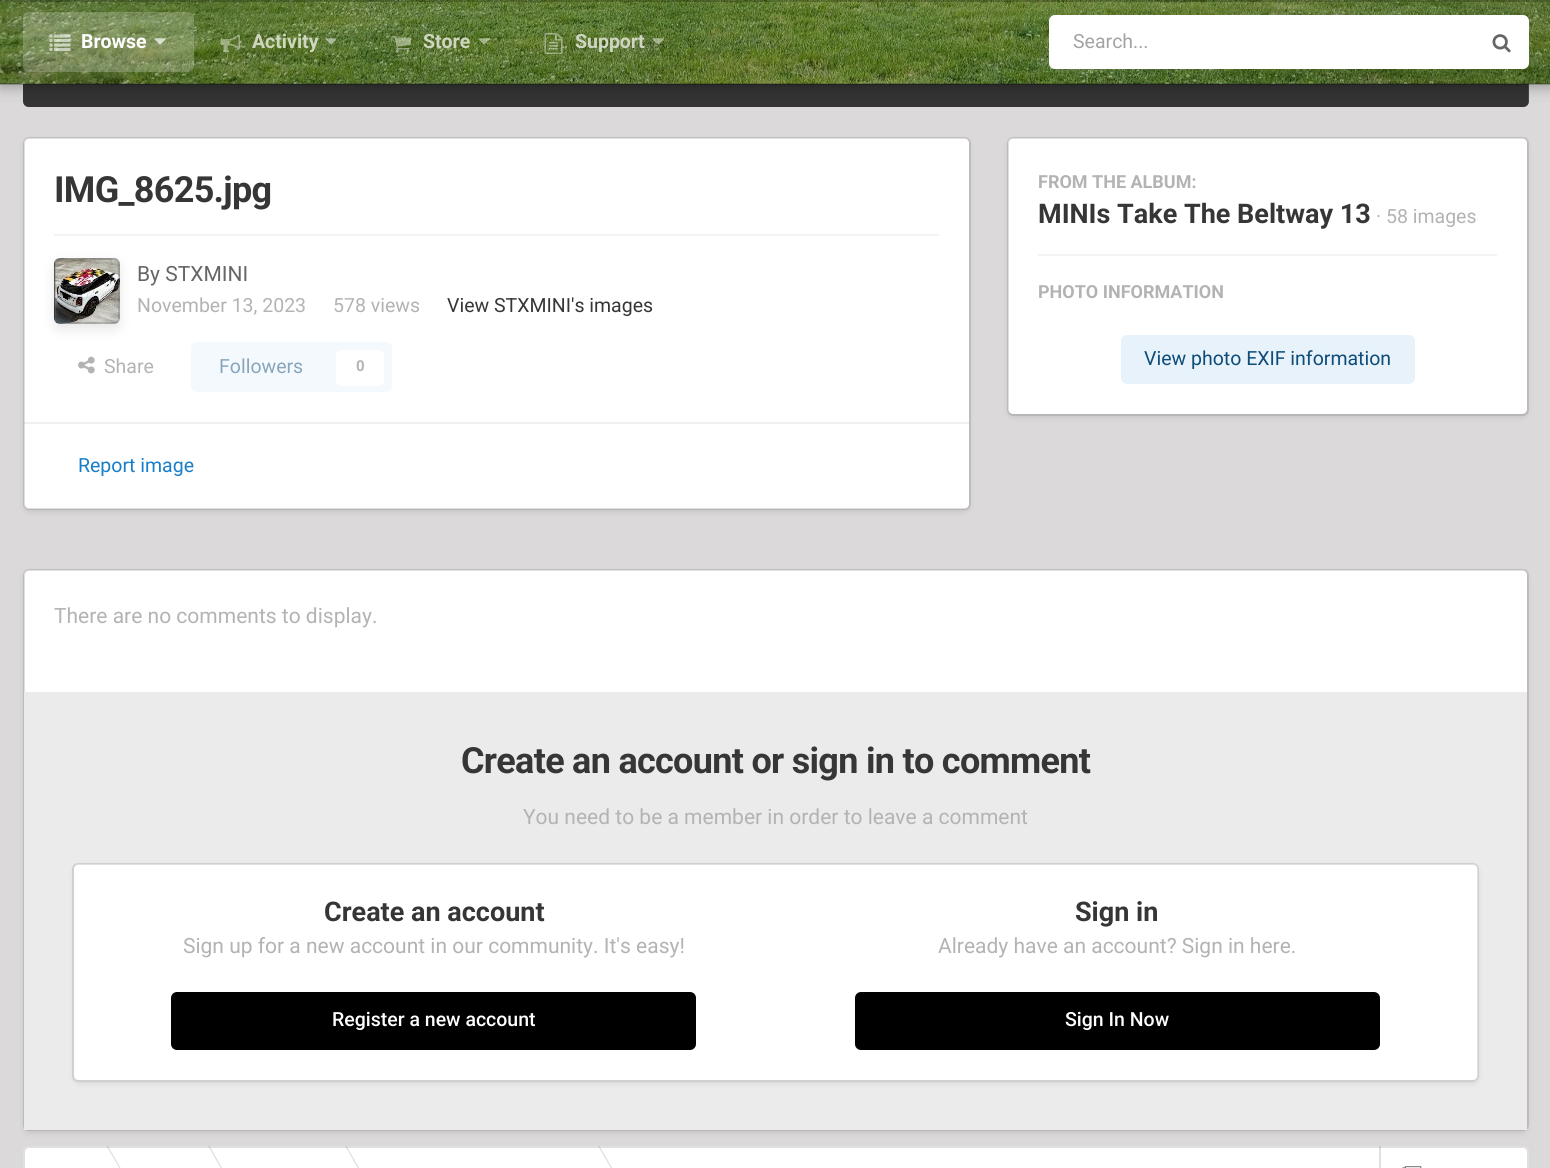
import math
import cairo

surface = cairo.ImageSurface(cairo.FORMAT_RGB24, 1550, 1168)
cr = cairo.Context(surface)
options = cairo.FontOptions()
options.set_hint_metrics(cairo.HINT_METRICS_OFF)
options.set_hint_style(cairo.HINT_STYLE_NONE)
cr.set_font_options(options)
cr.set_miter_limit(4)


def rgb(code):
    cr.set_source_rgb(*(v / 255 for v in bytes.fromhex(code[-6:])))


def tracked(x, y, s, letter, word):
    cr.move_to(x, y)
    for ch in s:
        cr.show_text(ch)
        cr.rel_move_to(letter + word * (ch == ' '), 0)


def rrect(x, y, w, h, r):
    cr.new_sub_path()
    for i, (u, v) in enumerate([(x + w - r, y + h - r), (x + r, y + h - r), (x + r, y + r), (x + w - r, y + r)]):
        cr.arc(u, v, r, i * math.pi / 2, (i + 1) * math.pi / 2)
    cr.close_path()


def soft_shadow(x, y, w, h, r, blur, alpha):
    cr.push_group_with_content(cairo.CONTENT_ALPHA)
    cr.set_operator(cairo.OPERATOR_SOURCE)
    for i in range(15, -16, -2):
        e = blur * i / 6
        if min(w, h) + 2 * e > 0:
            cr.set_source_rgba(0, 0, 0, alpha * math.erfc((i - 1) / 8.5) / 2)
            rrect(x - e, y - e, w + 2 * e, h + 2 * e, max(0, min(r + e + blur * .6, min(w, h) / 2 + e)))
            cr.fill()
    cr.mask(cr.pop_group())


def image(path, x, y, w, h):
    cr.save()
    cr.set_source_surface(cairo.ImageSurface.create_from_png(path), x, y)
    cr.rectangle(x, y, w, h)
    cr.fill()
    cr.restore()


rgb("#dcd9db")
cr.paint()
rgb("#4a4a4a")
cr.new_path()
cr.move_to(23, -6)
cr.line_to(1529, -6)
cr.line_to(1529, 101)
cr.curve_to(1529, 104.5, 1526.5, 107, 1523, 107)
cr.line_to(29, 107)
cr.curve_to(25.5, 107, 23, 104.5, 23, 101)
cr.close_path()
cr.fill()
cr.set_source_rgba(0, 0, 0, 0.3)
cr.new_path()
cr.move_to(23, -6)
cr.line_to(1529, -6)
cr.line_to(1529, 101)
cr.curve_to(1529, 104.5, 1526.5, 107, 1523, 107)
cr.line_to(29, 107)
cr.curve_to(25.5, 107, 23, 104.5, 23, 101)
cr.close_path()
cr.fill()
cr.set_source_rgba(1, 1, 1, 0.1)
cr.new_path()
cr.move_to(23, -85)
cr.line_to(23, -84)
cr.line_to(1528, -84)
cr.line_to(1528, 102)
cr.curve_to(1528, 103, 1528, 104, 1527, 105)
cr.curve_to(1528, 104, 1529, 103, 1529, 101)
cr.line_to(1529, -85)
cr.close_path()
cr.fill()
rgb("#000000")
soft_shadow(0, -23, 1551, 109, 0, 7.5, 0.35)
image("img/1.png", 0, 0, 1550, 84)
cr.set_source_rgba(0, 0, 0, 0.2)
cr.rectangle(0, 0, 1550, 2)
cr.fill()
cr.rectangle(0, 83, 1550, 2)
cr.fill()
cr.set_source_rgba(1, 1, 1, 0.2)
rrect(23, 12, 171, 60, 6)
cr.fill()
image("img/2.png", 49, 34, 22, 17)
image("img/3.png", 154, 38, 12, 7)
image("img/4.png", 220, 34, 22, 19)
image("img/5.png", 325, 38, 12, 7)
image("img/6.png", 391, 36, 20, 17)
image("img/7.png", 478, 38, 12, 7)
image("img/8.png", 544, 33, 19, 21)
image("img/9.png", 652, 38, 12, 7)
rgb("#ffffff")
rrect(1049, 15, 480, 54, 6)
cr.fill()
image("img/10.png", 1492, 34, 19, 19)
rgb("#000000")
soft_shadow(24, 141, 945, 371, 5, 3, 0.1)
rgb("#ffffff")
rrect(24, 138, 945, 371, 5)
cr.fill()
rrect(24, 138, 946, 371, 5)
cr.set_source_rgba(0.4, 0.4, 0.4, 0.2)
cr.stroke()
rgb("#f3f3f3")
cr.rectangle(54, 234, 885, 2)
cr.fill()
image("img/11.png", 54, 258, 66, 66)
cr.save()
cr.set_fill_rule(cairo.FILL_RULE_EVEN_ODD)
cr.new_path()
cr.move_to(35, 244)
cr.line_to(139, 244)
cr.line_to(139, 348)
cr.line_to(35, 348)
cr.close_path()
cr.move_to(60, 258)
cr.line_to(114, 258)
cr.curve_to(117.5, 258, 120, 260.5, 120, 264)
cr.line_to(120, 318)
cr.curve_to(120, 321.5, 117.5, 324, 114, 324)
cr.line_to(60, 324)
cr.curve_to(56.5, 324, 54, 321.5, 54, 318)
cr.line_to(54, 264)
cr.curve_to(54, 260.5, 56.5, 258, 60, 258)
cr.close_path()
cr.clip()
rgb("#000000")
soft_shadow(54, 263, 66, 66, 6, 6, 0.1)
cr.restore()
rrect(55, 259, 64, 64, 5)
cr.set_source_rgba(0.4, 0.4, 0.4, 0.3)
cr.stroke()
image("img/12.png", 78, 356, 17, 18)
rgb("#f4f9fd")
rrect(191, 342, 201, 50, 6)
cr.fill()
rgb("#ffffff")
rrect(336, 350, 48, 36, 6)
cr.fill()
cr.set_source_rgba(0.4, 0.4, 0.4, 0.1)
cr.rectangle(24, 422, 945, 2)
cr.fill()
rgb("#000000")
soft_shadow(1008, 141, 519, 276, 5, 3, 0.1)
rgb("#ffffff")
rrect(1008, 138, 519, 276, 5)
cr.fill()
rrect(1008, 138, 520, 277, 5)
cr.set_source_rgba(0.4, 0.4, 0.4, 0.2)
cr.stroke()
rgb("#f3f3f3")
cr.rectangle(1038, 254, 459, 2)
cr.fill()
rgb("#e8f2fa")
rrect(1121, 335, 294, 49, 6)
cr.fill()
rgb("#000000")
soft_shadow(24, 573, 1503, 560, 5, 3, 0.1)
rgb("#ffffff")
rrect(24, 570, 1503, 560, 5)
cr.fill()
rrect(24, 570, 1504, 560, 5)
cr.set_source_rgba(0.4, 0.4, 0.4, 0.2)
cr.stroke()
rgb("#ebebeb")
cr.rectangle(24, 692, 1503, 438)
cr.fill()
cr.save()
cr.set_fill_rule(cairo.FILL_RULE_EVEN_ODD)
cr.new_path()
cr.move_to(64, 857)
cr.line_to(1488, 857)
cr.line_to(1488, 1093)
cr.line_to(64, 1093)
cr.close_path()
cr.move_to(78, 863)
cr.line_to(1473, 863)
cr.curve_to(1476.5, 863, 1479, 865.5, 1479, 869)
cr.line_to(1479, 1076)
cr.curve_to(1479, 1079.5, 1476.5, 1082, 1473, 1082)
cr.line_to(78, 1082)
cr.curve_to(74.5, 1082, 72, 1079.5, 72, 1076)
cr.line_to(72, 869)
cr.curve_to(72, 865.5, 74.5, 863, 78, 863)
cr.close_path()
cr.clip()
rgb("#000000")
soft_shadow(74, 867, 1404, 216, 5, 3, 0.1)
cr.restore()
rgb("#ffffff")
rrect(74, 864, 1404, 216, 5)
cr.fill()
rrect(73, 864, 1405, 217, 5)
cr.set_source_rgba(0.4, 0.4, 0.4, 0.2)
cr.stroke()
rgb("#000000")
rrect(171, 992, 525, 58, 6)
cr.fill()
rrect(855, 992, 525, 58, 6)
cr.fill()
rgb("#ffffff")
rrect(23, 1146, 1506, 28, 6)
cr.fill()
rgb("#e0e0e0")
cr.new_path()
cr.move_to(106.5, 1146)
cr.line_to(108, 1146)
cr.line_to(124.5, 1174.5)
cr.line_to(123, 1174.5)
cr.close_path()
cr.fill()
cr.new_path()
cr.move_to(208, 1146)
cr.line_to(209.5, 1146)
cr.line_to(226, 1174.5)
cr.line_to(224.5, 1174.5)
cr.close_path()
cr.fill()
cr.new_path()
cr.move_to(345, 1146)
cr.line_to(346.5, 1146)
cr.line_to(363, 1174.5)
cr.line_to(361.5, 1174.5)
cr.close_path()
cr.fill()
cr.new_path()
cr.move_to(598, 1146)
cr.line_to(599.5, 1146)
cr.line_to(616, 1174.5)
cr.line_to(614.5, 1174.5)
cr.close_path()
cr.fill()
cr.rectangle(1379, 1146, 2, 22)
cr.fill()
image("img/13.png", 1402, 1166, 20, 2)
rrect(24, 1147, 1504, 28, 5)
cr.set_source_rgba(0.4, 0.4, 0.4, 0.2)
cr.stroke()
cr.select_font_face("Roboto", cairo.FONT_SLANT_NORMAL, cairo.FONT_WEIGHT_BOLD)
cr.set_font_size(19.5)
rgb("#ffffff")
cr.move_to(81, 48)
cr.show_text("Browse")
rgb("#ced6c0")
for x, y, s in [
    (252, 48, "Activity"),
    (423, 48, "Store"),
    (575, 48, "Support"),
]:
    cr.move_to(x, y)
    cr.show_text(s)
cr.select_font_face("Roboto")
rgb("#a3a3a3")
cr.move_to(1073, 48)
cr.show_text("Search...")
cr.select_font_face("Roboto", cairo.FONT_SLANT_NORMAL, cairo.FONT_WEIGHT_BOLD)
cr.set_font_size(36)
rgb("#363636")
tracked(54, 202, "IMG_8625.jpg", -0.7, 0)
cr.select_font_face("Roboto")
cr.set_font_size(21)
rgb("#666666")
cr.move_to(137, 281)
cr.show_text("By STXMINI")
cr.set_font_size(19.5)
rgb("#b3b3b3")
cr.move_to(137, 312)
cr.show_text("November 13, 2023")
cr.move_to(333, 312)
cr.show_text("578 views")
rgb("#363636")
cr.move_to(447, 312)
cr.show_text("View STXMINI's images")
rgb("#b3b3b3")
cr.move_to(104, 373)
cr.show_text("Share")
rgb("#87a6bc")
cr.move_to(219, 373)
cr.show_text("Followers")
cr.select_font_face("Roboto", cairo.FONT_SLANT_NORMAL, cairo.FONT_WEIGHT_BOLD)
cr.set_font_size(15)
rgb("#b3b3b3")
cr.move_to(356, 371)
cr.show_text("0")
cr.select_font_face("Roboto")
cr.set_font_size(19.5)
rgb("#177ec9")
cr.move_to(78, 472)
cr.show_text("Report image")
cr.select_font_face("Roboto", cairo.FONT_SLANT_NORMAL, cairo.FONT_WEIGHT_BOLD)
cr.set_font_size(18)
rgb("#b3b3b3")
cr.move_to(1038, 188)
cr.show_text("FROM THE ALBUM:")
cr.set_font_size(27)
rgb("#363636")
cr.move_to(1038, 223)
cr.show_text("MINIs Take The Beltway 13")
cr.select_font_face("Roboto")
cr.set_font_size(19.5)
rgb("#b3b3b3")
cr.move_to(1376, 223)
cr.show_text("· 58 images")
cr.select_font_face("Roboto", cairo.FONT_SLANT_NORMAL, cairo.FONT_WEIGHT_BOLD)
cr.set_font_size(18)
cr.move_to(1038, 298)
cr.show_text("PHOTO INFORMATION")
cr.select_font_face("Roboto")
cr.set_font_size(19.5)
rgb("#0e4c79")
cr.move_to(1144, 365)
cr.show_text("View photo EXIF information")
cr.set_font_size(21)
rgb("#b3b3b3")
cr.move_to(54, 623)
cr.show_text("There are no comments to display.")
cr.select_font_face("Roboto", cairo.FONT_SLANT_NORMAL, cairo.FONT_WEIGHT_BOLD)
cr.set_font_size(36)
rgb("#363636")
tracked(461, 773, "Create an account or sign in to comment", -0.7, 0)
cr.select_font_face("Roboto")
cr.set_font_size(21)
rgb("#b3b3b3")
cr.move_to(523, 824)
cr.show_text("You need to be a member in order to leave a comment")
cr.select_font_face("Roboto", cairo.FONT_SLANT_NORMAL, cairo.FONT_WEIGHT_BOLD)
cr.set_font_size(27)
rgb("#363636")
cr.move_to(324, 921)
cr.show_text("Create an account")
cr.select_font_face("Roboto")
cr.set_font_size(21)
rgb("#b3b3b3")
cr.move_to(183, 953)
cr.show_text("Sign up for a new account in our community. It's easy!")
cr.select_font_face("Roboto Medium")
cr.set_font_size(19.5)
rgb("#ffffff")
cr.move_to(332, 1026)
cr.show_text("Register a new account")
cr.select_font_face("Roboto", cairo.FONT_SLANT_NORMAL, cairo.FONT_WEIGHT_BOLD)
cr.set_font_size(27)
rgb("#363636")
cr.move_to(1075, 921)
cr.show_text("Sign in")
cr.select_font_face("Roboto")
cr.set_font_size(21)
rgb("#b3b3b3")
cr.move_to(938, 953)
cr.show_text("Already have an account? Sign in here.")
cr.select_font_face("Roboto Medium")
cr.set_font_size(19.5)
rgb("#ffffff")
cr.move_to(1065, 1026)
cr.show_text("Sign In Now")
surface.write_to_png("page.png")
